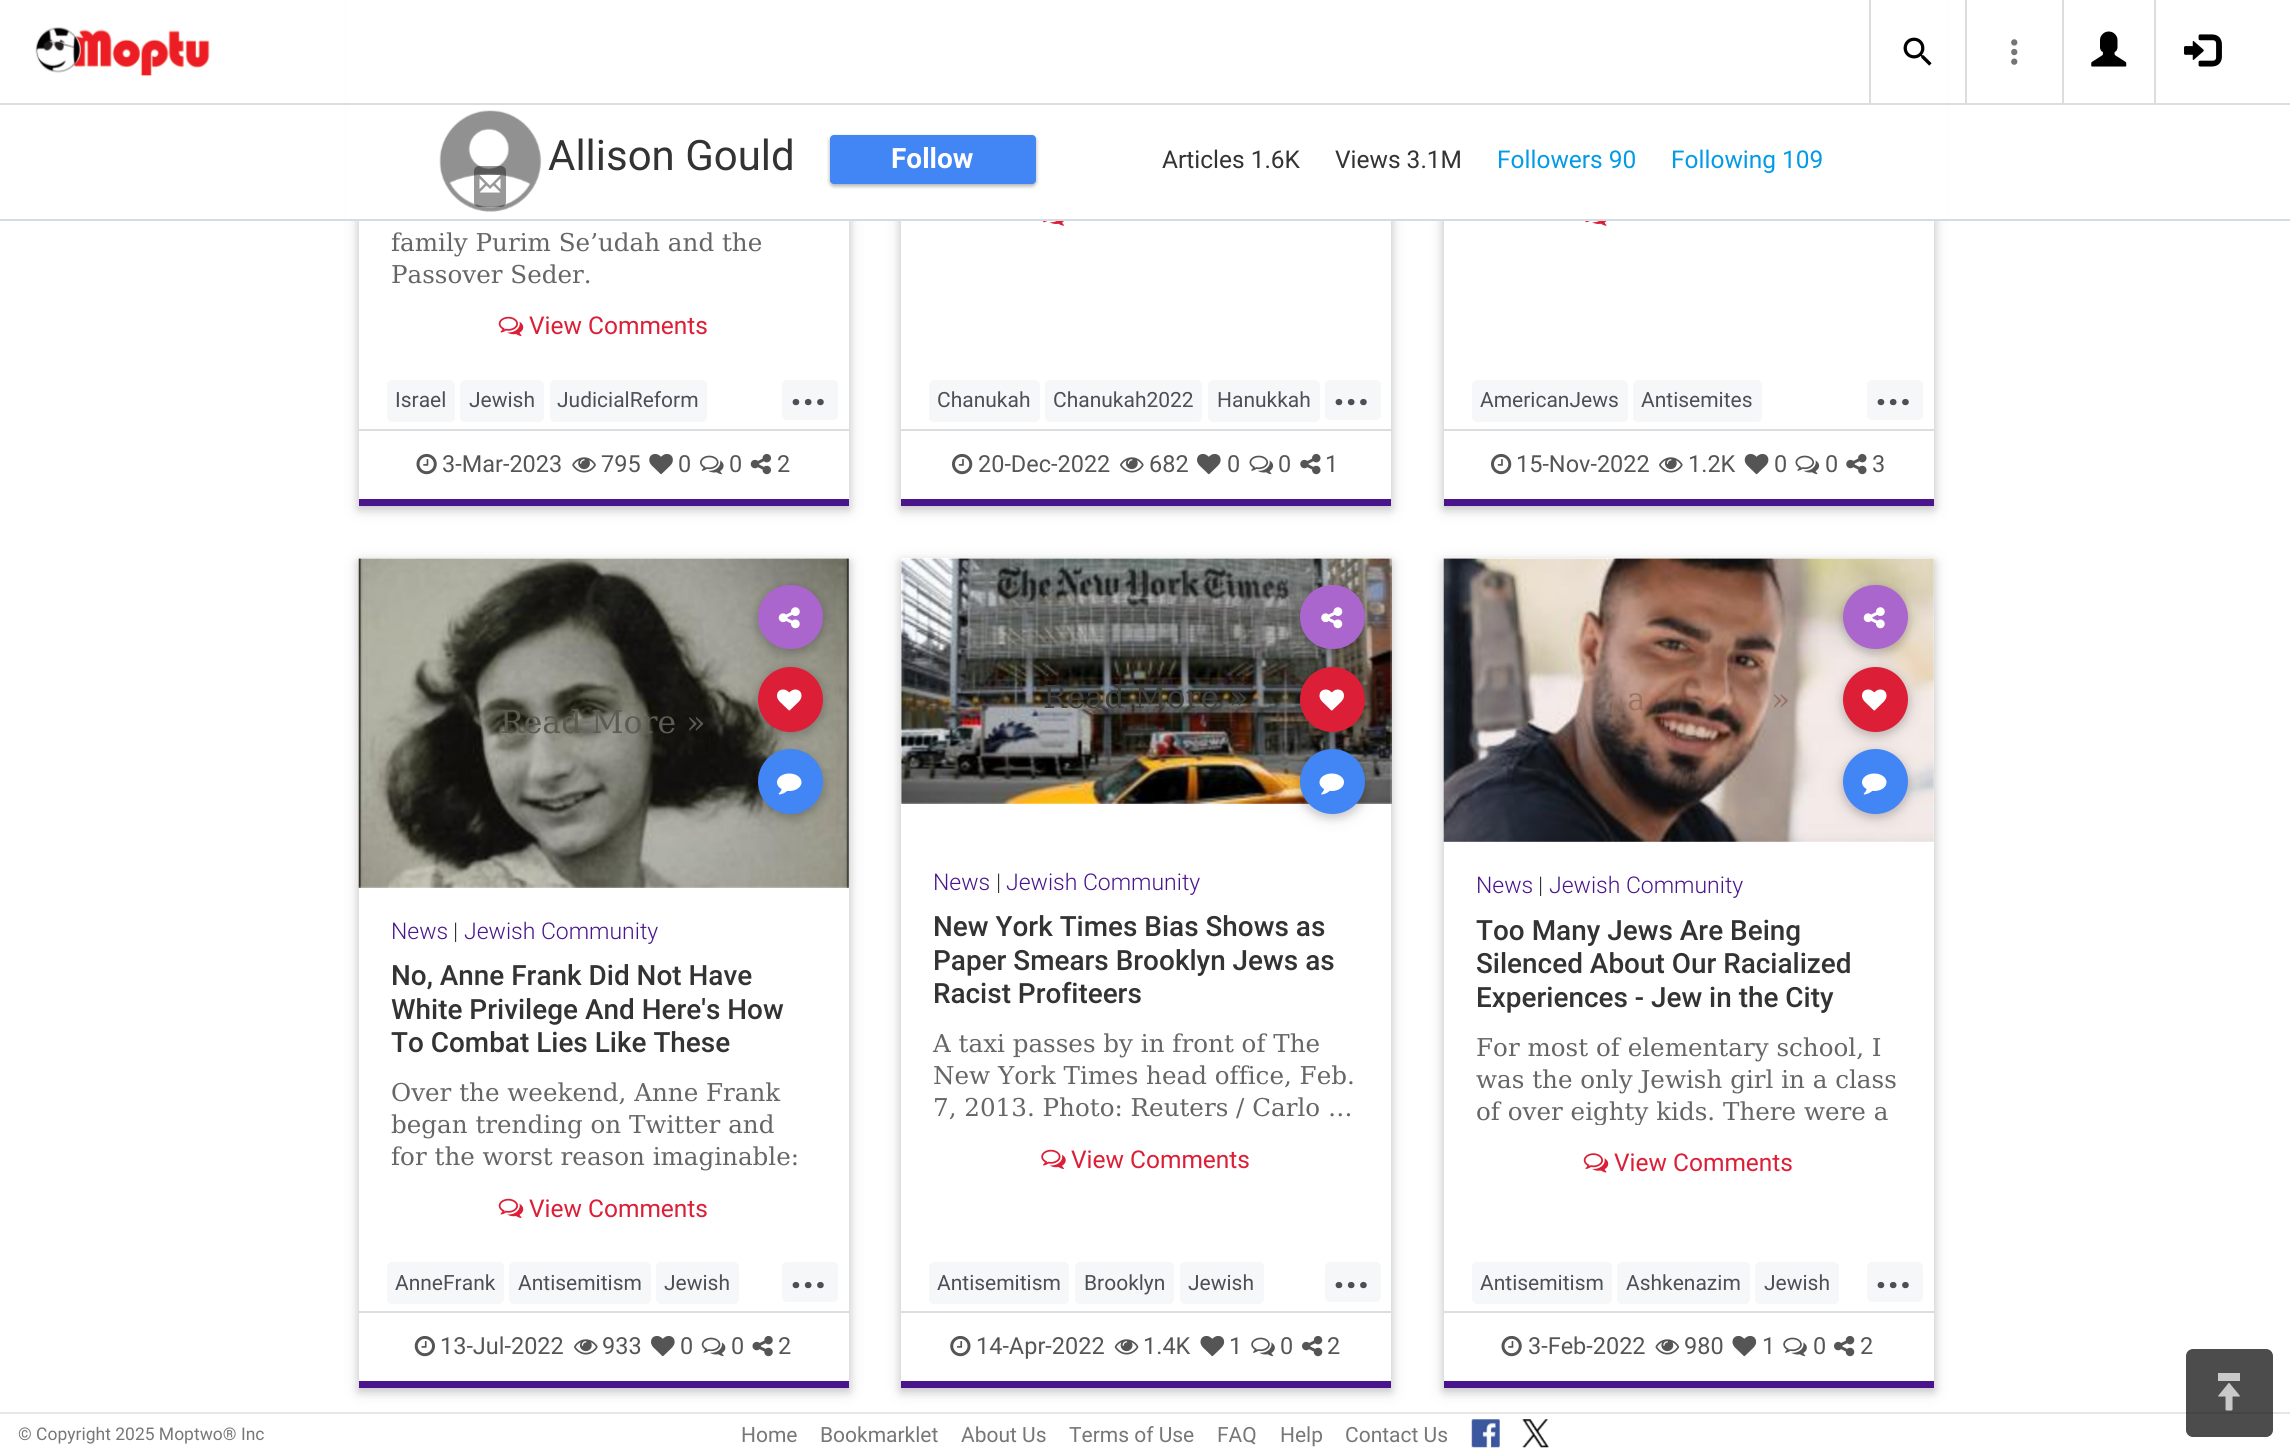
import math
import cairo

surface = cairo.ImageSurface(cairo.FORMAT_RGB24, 2290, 1454)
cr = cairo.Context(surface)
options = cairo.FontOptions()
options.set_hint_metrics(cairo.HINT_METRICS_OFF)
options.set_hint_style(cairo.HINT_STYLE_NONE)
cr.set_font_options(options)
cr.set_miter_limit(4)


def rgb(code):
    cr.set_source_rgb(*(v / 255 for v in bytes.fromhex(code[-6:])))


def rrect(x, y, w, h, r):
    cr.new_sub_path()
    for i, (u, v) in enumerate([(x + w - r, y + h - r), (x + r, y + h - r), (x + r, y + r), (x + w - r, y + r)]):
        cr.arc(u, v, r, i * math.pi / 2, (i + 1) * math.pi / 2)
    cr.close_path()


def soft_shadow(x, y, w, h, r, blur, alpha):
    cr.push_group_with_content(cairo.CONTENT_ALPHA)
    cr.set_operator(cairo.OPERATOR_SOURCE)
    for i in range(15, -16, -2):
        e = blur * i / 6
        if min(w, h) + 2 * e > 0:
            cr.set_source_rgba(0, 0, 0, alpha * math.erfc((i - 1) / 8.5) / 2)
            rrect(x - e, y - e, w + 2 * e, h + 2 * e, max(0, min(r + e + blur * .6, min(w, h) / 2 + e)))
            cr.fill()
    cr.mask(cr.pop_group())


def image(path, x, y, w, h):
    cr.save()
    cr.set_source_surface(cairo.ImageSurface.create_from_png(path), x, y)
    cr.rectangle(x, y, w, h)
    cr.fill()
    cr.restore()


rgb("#ffffff")
cr.paint()
rgb("#000000")
soft_shadow(359, -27, 490, 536, 0, 9, 0.12)
soft_shadow(359, -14, 490, 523, 0, 4.5, 0.16)
soft_shadow(901, -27, 490, 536, 0, 9, 0.12)
soft_shadow(901, -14, 490, 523, 0, 4.5, 0.16)
soft_shadow(1444, -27, 490, 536, 0, 9, 0.12)
soft_shadow(1444, -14, 490, 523, 0, 4.5, 0.16)
rgb("#ffffff")
cr.rectangle(346, 0, 1601, 103)
cr.fill()
cr.rectangle(346, 105, 1601, 114)
cr.fill()
cr.arc(490, 161, 55.5, 0, 2 * math.pi)
cr.fill_preserve()
cr.set_line_width(5)
cr.stroke()
rgb("#dddddd")
cr.rectangle(0, 103, 2290, 2)
cr.fill()
image("img/1.png", 35, 27, 175, 50)
cr.rectangle(1869, 0, 2, 103)
cr.fill()
image("img/2.png", 1903, 37, 29, 29)
cr.rectangle(1965, 0, 2, 103)
cr.fill()
image("img/3.png", 2011, 39, 7, 26)
cr.rectangle(2062, 0, 2, 103)
cr.fill()
image("img/4.png", 2091, 31, 36, 36)
cr.rectangle(2154, 0, 2, 103)
cr.fill()
image("img/5.png", 2184, 34, 38, 33)
rgb("#d3dbe4")
cr.rectangle(0, 219, 2290, 2)
cr.fill()
image("img/6.png", 439, 110, 103, 102)
cr.set_source_rgba(0, 0, 0, 0.4)
rrect(474, 166, 32, 41, 5)
cr.fill()
image("img/7.png", 479, 175, 22, 18)
rgb("#000000")
soft_shadow(830, 137, 206, 49, 4, 2, 0.24)
soft_shadow(830, 137, 206, 49, 4, 2.5, 0.12)
rgb("#4285f4")
rrect(830, 135, 206, 49, 4)
cr.fill()
rgb("#ffffff")
cr.rectangle(359, 221, 490, 278)
cr.fill()
rgb("#4a148c")
cr.rectangle(359, 499, 490, 7)
cr.fill()
image("img/8.png", 498, 316, 26, 20)
rgb("#f6f7f9")
rrect(387, 380, 68, 42, 5)
cr.fill()
rrect(460, 380, 84, 42, 5)
cr.fill()
rrect(550, 380, 157, 42, 5)
cr.fill()
rrect(782, 380, 56, 40, 5)
cr.fill()
rgb("#dddddd")
cr.rectangle(359, 429, 490, 2)
cr.fill()
image("img/9.png", 416, 453, 21, 22)
image("img/10.png", 572, 457, 24, 16)
image("img/11.png", 649, 453, 24, 22)
image("img/12.png", 700, 455, 24, 20)
image("img/13.png", 750, 453, 21, 22)
rgb("#ffffff")
cr.rectangle(901, 221, 490, 278)
cr.fill()
rgb("#4a148c")
cr.rectangle(901, 499, 490, 7)
cr.fill()
image("img/14.png", 1043, 221, 21, 5)
rgb("#f6f7f9")
rrect(929, 380, 111, 42, 5)
cr.fill()
rrect(1045, 380, 157, 42, 5)
cr.fill()
rrect(1208, 380, 112, 42, 5)
cr.fill()
rrect(1325, 380, 56, 40, 5)
cr.fill()
rgb("#dddddd")
cr.rectangle(901, 429, 490, 2)
cr.fill()
image("img/15.png", 952, 453, 21, 22)
image("img/16.png", 1120, 457, 24, 16)
image("img/17.png", 1197, 453, 24, 22)
image("img/18.png", 1249, 455, 25, 20)
image("img/19.png", 1300, 453, 21, 22)
rgb("#ffffff")
cr.rectangle(1444, 221, 490, 278)
cr.fill()
rgb("#4a148c")
cr.rectangle(1444, 499, 490, 7)
cr.fill()
image("img/20.png", 1585, 221, 22, 5)
rgb("#f6f7f9")
rrect(1472, 380, 156, 42, 5)
cr.fill()
rrect(1633, 380, 129, 42, 5)
cr.fill()
rrect(1867, 380, 56, 40, 5)
cr.fill()
rgb("#dddddd")
cr.rectangle(1444, 429, 490, 2)
cr.fill()
image("img/15.png", 1491, 453, 21, 22)
image("img/16.png", 1659, 457, 24, 16)
image("img/21.png", 1744, 453, 25, 22)
image("img/18.png", 1795, 455, 25, 20)
image("img/19.png", 1846, 453, 21, 22)
rgb("#000000")
soft_shadow(359, 562, 490, 829, 0, 9, 0.12)
soft_shadow(359, 562, 490, 829, 0, 4.5, 0.16)
rgb("#ffffff")
cr.rectangle(359, 558, 490, 823)
cr.fill()
rgb("#4a148c")
cr.rectangle(359, 1381, 490, 7)
cr.fill()
image("img/22.png", 358, 558, 491, 330)
rgb("#000000")
soft_shadow(758, 588, 65, 65, 32.5, 9, 0.12)
soft_shadow(758, 588, 65, 65, 32.5, 4.5, 0.16)
rgb("#aa66cc")
rrect(758, 585, 65, 64, 32)
cr.fill()
image("img/23.png", 778, 607, 22, 22)
rgb("#000000")
soft_shadow(758, 670, 65, 65, 32.5, 9, 0.12)
soft_shadow(758, 670, 65, 65, 32.5, 4.5, 0.16)
rgb("#dc1e36")
cr.arc(790.5, 699.5, 32.5, 0, 2 * math.pi)
cr.fill()
image("img/24.png", 777, 689, 25, 22)
rgb("#000000")
soft_shadow(758, 753, 65, 64, 32, 9, 0.12)
soft_shadow(758, 753, 65, 64, 32, 4.5, 0.16)
rgb("#4285f4")
cr.arc(790.5, 781.5, 32.5, 0, 2 * math.pi)
cr.fill()
image("img/25.png", 777, 773, 25, 22)
image("img/8.png", 498, 1198, 26, 20)
rgb("#f6f7f9")
rrect(387, 1262, 117, 42, 5)
cr.fill()
rrect(509, 1262, 142, 42, 5)
cr.fill()
rrect(656, 1262, 83, 42, 5)
cr.fill()
rrect(782, 1262, 56, 40, 5)
cr.fill()
rgb("#dddddd")
cr.rectangle(359, 1311, 490, 2)
cr.fill()
image("img/26.png", 414, 1335, 21, 22)
image("img/16.png", 574, 1339, 24, 16)
image("img/17.png", 651, 1335, 24, 22)
image("img/27.png", 701, 1337, 25, 20)
image("img/28.png", 752, 1335, 21, 22)
rgb("#000000")
soft_shadow(901, 562, 490, 829, 0, 9, 0.12)
soft_shadow(901, 562, 490, 829, 0, 4.5, 0.16)
rgb("#ffffff")
cr.rectangle(901, 558, 490, 823)
cr.fill()
rgb("#4a148c")
cr.rectangle(901, 1381, 490, 7)
cr.fill()
image("img/29.png", 901, 558, 491, 246)
rgb("#000000")
soft_shadow(1300, 588, 65, 65, 32.5, 9, 0.12)
soft_shadow(1300, 588, 65, 65, 32.5, 4.5, 0.16)
rgb("#aa66cc")
rrect(1300, 585, 65, 64, 32)
cr.fill()
image("img/30.png", 1321, 607, 22, 22)
rgb("#000000")
soft_shadow(1300, 670, 65, 65, 32.5, 9, 0.12)
soft_shadow(1300, 670, 65, 65, 32.5, 4.5, 0.16)
rgb("#dc1e36")
cr.arc(1332.5, 699.5, 32.5, 0, 2 * math.pi)
cr.fill()
image("img/31.png", 1319, 689, 25, 22)
rgb("#000000")
soft_shadow(1300, 753, 65, 64, 32, 9, 0.12)
soft_shadow(1300, 753, 65, 64, 32, 4.5, 0.16)
rgb("#4285f4")
cr.arc(1332.5, 781.5, 32.5, 0, 2 * math.pi)
cr.fill()
image("img/32.png", 1319, 773, 25, 22)
image("img/33.png", 1041, 1149, 25, 20)
rgb("#f6f7f9")
rrect(929, 1262, 140, 42, 5)
cr.fill()
rrect(1075, 1262, 99, 42, 5)
cr.fill()
rrect(1180, 1262, 84, 42, 5)
cr.fill()
rrect(1325, 1262, 56, 40, 5)
cr.fill()
rgb("#dddddd")
cr.rectangle(901, 1311, 490, 2)
cr.fill()
image("img/34.png", 950, 1335, 21, 22)
image("img/35.png", 1114, 1339, 25, 16)
image("img/36.png", 1200, 1335, 25, 22)
image("img/37.png", 1251, 1337, 24, 20)
image("img/38.png", 1302, 1336, 21, 21)
rgb("#000000")
soft_shadow(1444, 562, 490, 829, 0, 9, 0.12)
soft_shadow(1444, 562, 490, 829, 0, 4.5, 0.16)
rgb("#ffffff")
cr.rectangle(1444, 558, 490, 823)
cr.fill()
rgb("#4a148c")
cr.rectangle(1444, 1381, 490, 7)
cr.fill()
image("img/39.png", 1443, 558, 491, 284)
rgb("#000000")
soft_shadow(1843, 588, 65, 65, 32.5, 9, 0.12)
soft_shadow(1843, 588, 65, 65, 32.5, 4.5, 0.16)
rgb("#aa66cc")
rrect(1843, 585, 65, 64, 32)
cr.fill()
image("img/23.png", 1863, 607, 22, 22)
rgb("#000000")
soft_shadow(1843, 670, 65, 65, 32.5, 9, 0.12)
soft_shadow(1843, 670, 65, 65, 32.5, 4.5, 0.16)
rgb("#dc1e36")
cr.arc(1875.5, 699.5, 32.5, 0, 2 * math.pi)
cr.fill()
image("img/24.png", 1862, 689, 25, 22)
rgb("#000000")
soft_shadow(1843, 753, 65, 64, 32, 9, 0.12)
soft_shadow(1843, 753, 65, 64, 32, 4.5, 0.16)
rgb("#4285f4")
cr.arc(1875.5, 781.5, 32.5, 0, 2 * math.pi)
cr.fill()
image("img/25.png", 1862, 773, 25, 22)
image("img/40.png", 1583, 1153, 26, 20)
rgb("#f6f7f9")
rrect(1472, 1262, 140, 42, 5)
cr.fill()
rrect(1617, 1262, 133, 42, 5)
cr.fill()
rrect(1755, 1262, 84, 42, 5)
cr.fill()
rrect(1867, 1262, 56, 40, 5)
cr.fill()
rgb("#dddddd")
cr.rectangle(1444, 1311, 490, 2)
cr.fill()
image("img/9.png", 1501, 1335, 21, 22)
image("img/41.png", 1655, 1339, 25, 16)
image("img/36.png", 1732, 1335, 25, 22)
image("img/37.png", 1783, 1337, 24, 20)
image("img/38.png", 1834, 1336, 21, 21)
rgb("#e7e7e7")
cr.rectangle(0, 1412, 2290, 2)
cr.fill()
image("img/42.png", 1471, 1419, 29, 29)
image("img/43.png", 1522, 1419, 27, 29)
cr.set_source_rgba(0, 0, 0, 0.7)
rrect(2186, 1349, 87, 88, 7)
cr.fill()
rgb("#c9c9c9")
cr.rectangle(2218, 1373, 22, 8)
cr.fill()
image("img/44.png", 2218, 1383, 22, 28)
cr.select_font_face("Roboto")
cr.set_font_size(42)
rgb("#333333")
cr.move_to(548, 170)
cr.show_text("Allison Gould")
cr.select_font_face("Roboto", cairo.FONT_SLANT_NORMAL, cairo.FONT_WEIGHT_BOLD)
cr.set_font_size(28)
rgb("#ffffff")
cr.move_to(891, 168)
cr.show_text("Follow")
cr.select_font_face("Roboto")
cr.set_font_size(24.5)
rgb("#333333")
cr.move_to(1162, 168)
cr.show_text("Articles 1.6K")
cr.move_to(1335, 168)
cr.show_text("Views 3.1M")
rgb("#039be5")
cr.move_to(1497, 168)
cr.show_text("Followers 90")
cr.move_to(1671, 168)
cr.show_text("Following 109")
cr.select_font_face("DejaVu Serif")
cr.set_font_size(24.6)
rgb("#666666")
cr.move_to(391, 251)
cr.show_text("family Purim Se’udah and the")
cr.move_to(391, 283)
cr.show_text("Passover Seder.")
cr.select_font_face("Roboto")
cr.set_font_size(24.5)
rgb("#dc1e36")
cr.move_to(529, 334)
cr.show_text("View Comments")
cr.set_font_size(21)
rgb("#4b4f56")
for x, y, s in [
    (395, 407, "Israel"),
    (469, 407, "Jewish"),
    (557, 407, "JudicialReform"),
]:
    cr.move_to(x, y)
    cr.show_text(s)
cr.select_font_face("Roboto", cairo.FONT_SLANT_NORMAL, cairo.FONT_WEIGHT_BOLD)
cr.set_font_size(42)
cr.move_to(790, 405)
cr.show_text("...")
cr.select_font_face("Roboto")
cr.set_font_size(23.5)
rgb("#555555")
for x, y, s in [
    (442, 472, "3-Mar-2023"),
    (601, 472, "795"),
    (678, 472, "0"),
    (729, 472, "0"),
    (777, 472, "2"),
]:
    cr.move_to(x, y)
    cr.show_text(s)
cr.set_font_size(21)
rgb("#4b4f56")
for x, y, s in [
    (937, 407, "Chanukah"),
    (1053, 407, "Chanukah2022"),
    (1217, 407, "Hanukkah"),
]:
    cr.move_to(x, y)
    cr.show_text(s)
cr.select_font_face("Roboto", cairo.FONT_SLANT_NORMAL, cairo.FONT_WEIGHT_BOLD)
cr.set_font_size(42)
cr.move_to(1333, 405)
cr.show_text("...")
cr.select_font_face("Roboto")
cr.set_font_size(23.5)
rgb("#555555")
for x, y, s in [
    (978, 472, "20-Dec-2022"),
    (1149, 472, "682"),
    (1227, 472, "0"),
    (1278, 472, "0"),
    (1325, 472, "1"),
]:
    cr.move_to(x, y)
    cr.show_text(s)
cr.set_font_size(21)
rgb("#4b4f56")
cr.move_to(1480, 407)
cr.show_text("AmericanJews")
cr.move_to(1641, 407)
cr.show_text("Antisemites")
cr.select_font_face("Roboto", cairo.FONT_SLANT_NORMAL, cairo.FONT_WEIGHT_BOLD)
cr.set_font_size(42)
cr.move_to(1875, 405)
cr.show_text("...")
cr.select_font_face("Roboto")
cr.set_font_size(23.5)
rgb("#555555")
for x, y, s in [
    (1516, 472, "15-Nov-2022"),
    (1688, 472, "1.2K"),
    (1774, 472, "0"),
    (1825, 472, "0"),
    (1872, 472, "3"),
]:
    cr.move_to(x, y)
    cr.show_text(s)
cr.select_font_face("DejaVu Serif")
cr.set_font_size(31.5)
rgb("#5b5b52")
cr.move_to(500, 733)
cr.show_text("Read More »")
cr.select_font_face("Roboto Light")
cr.set_font_size(23)
rgb("#4a148c")
cr.move_to(391, 939)
cr.show_text("News")
rgb("#333333")
cr.move_to(453, 939)
cr.show_text("|")
rgb("#4a148c")
cr.move_to(464, 939)
cr.show_text("Jewish Community")
cr.select_font_face("Roboto Medium")
cr.set_font_size(27.9)
rgb("#333333")
for x, y, s in [
    (391, 985, "No, Anne Frank Did Not Have"),
    (391, 1019, "White Privilege And Here's How"),
    (391, 1052, "To Combat Lies Like These"),
]:
    cr.move_to(x, y)
    cr.show_text(s)
cr.select_font_face("DejaVu Serif")
cr.set_font_size(24.6)
rgb("#666666")
for x, y, s in [
    (391, 1101, "Over the weekend, Anne Frank"),
    (391, 1133, "began trending on Twitter and"),
    (391, 1165, "for the worst reason imaginable:"),
]:
    cr.move_to(x, y)
    cr.show_text(s)
cr.select_font_face("Roboto")
cr.set_font_size(24.5)
rgb("#dc1e36")
cr.move_to(529, 1217)
cr.show_text("View Comments")
cr.set_font_size(21)
rgb("#4b4f56")
for x, y, s in [
    (395, 1290, "AnneFrank"),
    (518, 1290, "Antisemitism"),
    (664, 1290, "Jewish"),
]:
    cr.move_to(x, y)
    cr.show_text(s)
cr.select_font_face("Roboto", cairo.FONT_SLANT_NORMAL, cairo.FONT_WEIGHT_BOLD)
cr.set_font_size(42)
cr.move_to(790, 1288)
cr.show_text("...")
cr.select_font_face("Roboto")
cr.set_font_size(23.5)
rgb("#555555")
for x, y, s in [
    (440, 1354, "13-Jul-2022"),
    (602, 1354, "933"),
    (680, 1354, "0"),
    (731, 1354, "0"),
    (778, 1354, "2"),
]:
    cr.move_to(x, y)
    cr.show_text(s)
cr.select_font_face("DejaVu Serif")
cr.set_font_size(31.5)
rgb("#41403b")
cr.move_to(1043, 708)
cr.show_text("Read More »")
cr.select_font_face("Roboto Light")
cr.set_font_size(23)
rgb("#4a148c")
cr.move_to(933, 890)
cr.show_text("News")
rgb("#333333")
cr.move_to(996, 890)
cr.show_text("|")
rgb("#4a148c")
cr.move_to(1006, 890)
cr.show_text("Jewish Community")
cr.select_font_face("Roboto Medium")
cr.set_font_size(27.9)
rgb("#333333")
for x, y, s in [
    (933, 936, "New York Times Bias Shows as"),
    (933, 970, "Paper Smears Brooklyn Jews as"),
    (933, 1003, "Racist Profiteers"),
]:
    cr.move_to(x, y)
    cr.show_text(s)
cr.select_font_face("DejaVu Serif")
cr.set_font_size(24.6)
rgb("#666666")
for x, y, s in [
    (933, 1052, "A taxi passes by in front of The"),
    (933, 1084, "New York Times head office, Feb."),
    (933, 1116, "7, 2013. Photo: Reuters / Carlo …"),
]:
    cr.move_to(x, y)
    cr.show_text(s)
cr.select_font_face("Roboto")
cr.set_font_size(24.5)
rgb("#dc1e36")
cr.move_to(1071, 1168)
cr.show_text("View Comments")
cr.set_font_size(21)
rgb("#4b4f56")
for x, y, s in [
    (937, 1290, "Antisemitism"),
    (1084, 1290, "Brooklyn"),
    (1188, 1290, "Jewish"),
]:
    cr.move_to(x, y)
    cr.show_text(s)
cr.select_font_face("Roboto", cairo.FONT_SLANT_NORMAL, cairo.FONT_WEIGHT_BOLD)
cr.set_font_size(42)
cr.move_to(1333, 1288)
cr.show_text("...")
cr.select_font_face("Roboto")
cr.set_font_size(23.5)
rgb("#555555")
for x, y, s in [
    (976, 1354, "14-Apr-2022"),
    (1143, 1354, "1.4K"),
    (1229, 1354, "1"),
    (1280, 1354, "0"),
    (1327, 1354, "2"),
]:
    cr.move_to(x, y)
    cr.show_text(s)
cr.select_font_face("DejaVu Serif")
cr.set_font_size(31.5)
rgb("#987365")
cr.move_to(1627, 710)
cr.show_text("a")
cr.move_to(1771, 710)
cr.show_text("»")
cr.select_font_face("Roboto Light")
cr.set_font_size(23)
rgb("#4a148c")
cr.move_to(1476, 893)
cr.show_text("News")
rgb("#333333")
cr.move_to(1538, 893)
cr.show_text("|")
rgb("#4a148c")
cr.move_to(1549, 893)
cr.show_text("Jewish Community")
cr.select_font_face("Roboto Medium")
cr.set_font_size(27.9)
rgb("#333333")
for x, y, s in [
    (1476, 940, "Too Many Jews Are Being"),
    (1476, 973, "Silenced About Our Racialized"),
    (1476, 1007, "Experiences - Jew in the City"),
]:
    cr.move_to(x, y)
    cr.show_text(s)
cr.select_font_face("DejaVu Serif")
cr.set_font_size(24.6)
rgb("#666666")
cr.move_to(1476, 1056)
cr.show_text("For most of elementary school, I")
cr.move_to(1476, 1088)
cr.show_text("was the only Jewish girl in a class")
cr.save()
cr.rectangle(1475, 1031, 426, 94)
cr.clip()
cr.move_to(1476, 1120)
cr.show_text("of over eighty kids. There were a")
cr.restore()
cr.select_font_face("Roboto")
cr.set_font_size(24.5)
rgb("#dc1e36")
cr.move_to(1614, 1171)
cr.show_text("View Comments")
cr.set_font_size(21)
rgb("#4b4f56")
for x, y, s in [
    (1480, 1290, "Antisemitism"),
    (1626, 1290, "Ashkenazim"),
    (1764, 1290, "Jewish"),
]:
    cr.move_to(x, y)
    cr.show_text(s)
cr.select_font_face("Roboto", cairo.FONT_SLANT_NORMAL, cairo.FONT_WEIGHT_BOLD)
cr.set_font_size(42)
cr.move_to(1875, 1288)
cr.show_text("...")
cr.select_font_face("Roboto")
cr.set_font_size(23.5)
rgb("#555555")
for x, y, s in [
    (1528, 1354, "3-Feb-2022"),
    (1684, 1354, "980"),
    (1762, 1354, "1"),
    (1813, 1354, "0"),
    (1860, 1354, "2"),
]:
    cr.move_to(x, y)
    cr.show_text(s)
cr.set_font_size(17.5)
rgb("#777777")
cr.move_to(18, 1440)
cr.show_text("© Copyright 2025 Moptwo® Inc")
cr.set_font_size(21)
for x, y, s in [
    (741, 1442, "Home"),
    (820, 1442, "Bookmarklet"),
    (961, 1442, "About Us"),
    (1069, 1442, "Terms of Use"),
    (1217, 1442, "FAQ"),
    (1280, 1442, "Help"),
    (1345, 1442, "Contact Us"),
]:
    cr.move_to(x, y)
    cr.show_text(s)
surface.write_to_png("page.png")
